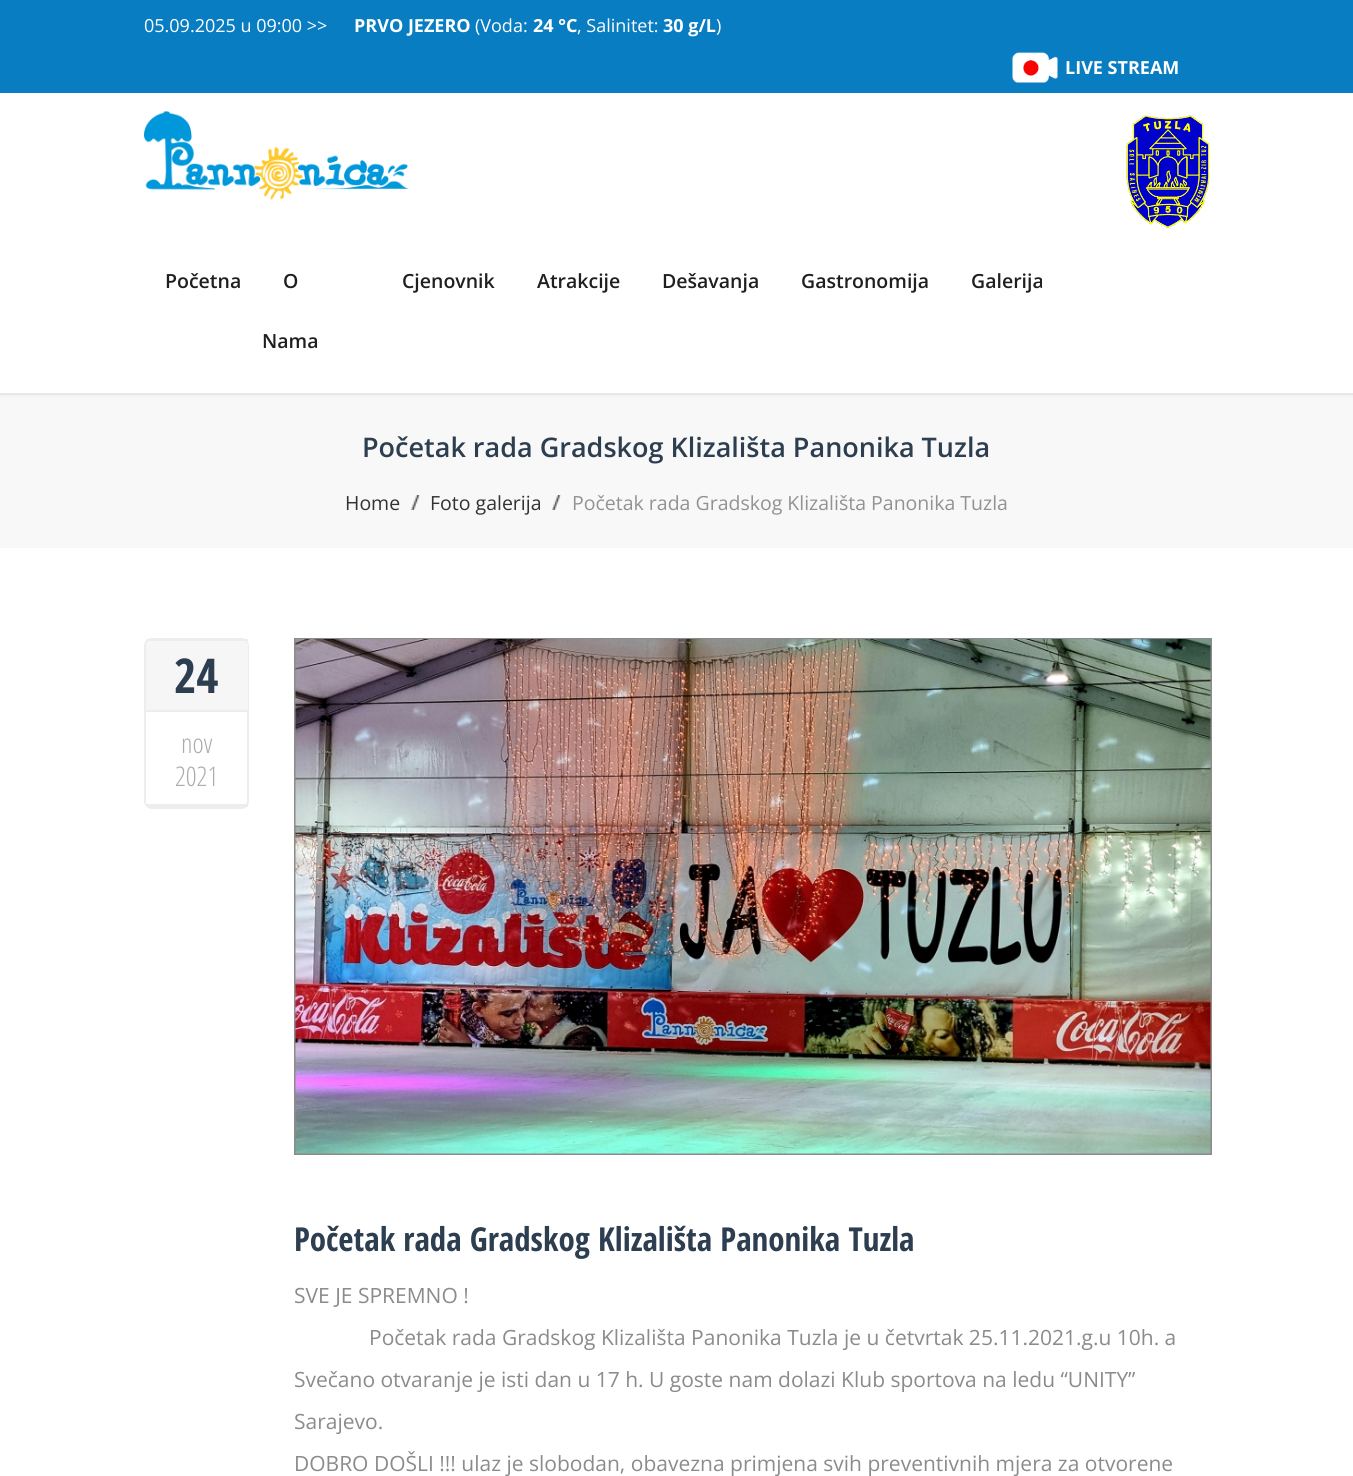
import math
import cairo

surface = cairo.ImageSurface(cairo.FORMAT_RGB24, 1353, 1476)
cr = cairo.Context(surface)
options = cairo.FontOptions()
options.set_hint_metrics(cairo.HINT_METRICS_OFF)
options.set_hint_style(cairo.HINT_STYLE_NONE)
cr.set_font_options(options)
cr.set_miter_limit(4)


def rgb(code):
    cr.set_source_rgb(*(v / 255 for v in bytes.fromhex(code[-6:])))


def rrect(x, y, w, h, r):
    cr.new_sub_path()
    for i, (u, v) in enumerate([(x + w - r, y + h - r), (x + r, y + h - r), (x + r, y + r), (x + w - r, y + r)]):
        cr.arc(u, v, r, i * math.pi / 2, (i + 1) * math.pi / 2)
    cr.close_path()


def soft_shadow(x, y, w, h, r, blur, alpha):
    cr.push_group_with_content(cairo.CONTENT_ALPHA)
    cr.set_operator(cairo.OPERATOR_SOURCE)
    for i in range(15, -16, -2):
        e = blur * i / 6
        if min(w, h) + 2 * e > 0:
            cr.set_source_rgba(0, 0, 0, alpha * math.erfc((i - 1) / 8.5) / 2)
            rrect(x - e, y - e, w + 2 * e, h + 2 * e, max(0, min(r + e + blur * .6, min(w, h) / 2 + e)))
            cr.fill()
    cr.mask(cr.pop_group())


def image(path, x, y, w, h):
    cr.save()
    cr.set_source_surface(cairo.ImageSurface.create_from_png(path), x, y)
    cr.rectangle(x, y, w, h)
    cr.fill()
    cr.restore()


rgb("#ffffff")
cr.paint()
rgb("#f8f8f8")
cr.rectangle(0, 395, 1353, 153)
cr.fill()
rgb("#000000")
soft_shadow(0, -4, 1353, 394, 0, 4, 0.3)
for x, y, w, h, color in [
    (0, 93, 1353, 300, "#ffffff"),
    (0, 393, 1353, 2, "#e8e8e8"),
    (0, 0, 1353, 93, "#087dc2"),
]:
    rgb(color)
    cr.rectangle(x, y, w, h)
    cr.fill()
image("img/1.png", 1012, 52, 46, 31)
image("img/2.png", 144, 111, 265, 89)
image("img/3.png", 1126, 115, 83, 113)
image("img/4.png", 411, 495, 9, 15)
image("img/5.png", 552, 495, 9, 15)
rrect(145, 639, 103, 169, 7)
rgb("#ededed")
cr.stroke()
rgb("#eceeeb")
cr.rectangle(146, 804, 102, 3)
cr.fill()
rgb("#ededed")
cr.rectangle(146, 639, 102, 2)
cr.fill()
rgb("#f6f6f6")
cr.new_path()
cr.move_to(151, 641)
cr.line_to(243, 641)
cr.curve_to(246, 641, 248, 643, 248, 646)
cr.line_to(248, 711)
cr.line_to(146, 711)
cr.line_to(146, 646)
cr.curve_to(146, 643, 148, 641, 151, 641)
cr.close_path()
cr.fill()
rgb("#ededed")
cr.rectangle(146, 710, 102, 2)
cr.fill()
cr.rectangle(295, 639, 916, 515)
rgb("#8b8b8b")
cr.stroke()
image("img/6.png", 295, 639, 916, 515)
cr.select_font_face("Open Sans")
cr.set_font_size(18)
rgb("#ffffff")
cr.move_to(144, 32)
cr.show_text("05.09.2025 u 09:00 >>")
cr.select_font_face("Open Sans", cairo.FONT_SLANT_NORMAL, cairo.FONT_WEIGHT_BOLD)
cr.move_to(354, 32)
cr.show_text("PRVO JEZERO")
cr.select_font_face("Open Sans")
cr.move_to(475, 32)
cr.show_text("(Voda:")
cr.select_font_face("Open Sans", cairo.FONT_SLANT_NORMAL, cairo.FONT_WEIGHT_BOLD)
cr.move_to(533, 32)
cr.show_text("24 °C")
cr.select_font_face("Open Sans")
cr.move_to(577, 32)
cr.show_text(", Salinitet:")
cr.select_font_face("Open Sans", cairo.FONT_SLANT_NORMAL, cairo.FONT_WEIGHT_BOLD)
cr.move_to(663, 32)
cr.show_text("30 g/L")
cr.select_font_face("Open Sans")
cr.move_to(716, 32)
cr.show_text(")")
cr.select_font_face("Open Sans", cairo.FONT_SLANT_NORMAL, cairo.FONT_WEIGHT_BOLD)
cr.move_to(1065, 74)
cr.show_text("LIVE STREAM")
cr.select_font_face("Open Sans SemiBold")
cr.set_font_size(19.5)
rgb("#1f1f1f")
for x, y, s in [
    (165, 288, "Početna"),
    (283, 288, "O"),
    (262, 348, "Nama"),
    (402, 288, "Cjenovnik"),
    (537, 288, "Atrakcije"),
    (662, 288, "Dešavanja"),
    (801, 288, "Gastronomija"),
    (971, 288, "Galerija"),
]:
    cr.move_to(x, y)
    cr.show_text(s)
cr.set_font_size(27)
rgb("#2c3e50")
cr.move_to(362, 457)
cr.show_text("Početak rada Gradskog Klizališta Panonika Tuzla")
cr.select_font_face("Open Sans")
cr.set_font_size(19.5)
rgb("#323232")
cr.move_to(345, 510)
cr.show_text("Home")
cr.move_to(430, 510)
cr.show_text("Foto galerija")
rgb("#929292")
cr.move_to(572, 510)
cr.show_text("Početak rada Gradskog Klizališta Panonika Tuzla")
cr.select_font_face("Open Sans Condensed", cairo.FONT_SLANT_NORMAL, cairo.FONT_WEIGHT_BOLD)
cr.set_font_size(48)
rgb("#2c3e50")
cr.move_to(174, 693)
cr.show_text("24")
cr.select_font_face("Open Sans Condensed Light")
cr.set_font_size(27)
rgb("#acacac")
cr.move_to(181, 753)
cr.show_text("nov")
cr.move_to(175, 786)
cr.show_text("2021")
cr.select_font_face("Open Sans Condensed", cairo.FONT_SLANT_NORMAL, cairo.FONT_WEIGHT_BOLD)
cr.set_font_size(33)
rgb("#2c3e50")
cr.move_to(294, 1251)
cr.show_text("Početak rada Gradskog Klizališta Panonika Tuzla")
cr.select_font_face("Open Sans")
cr.set_font_size(21)
rgb("#8b8b8b")
for x, y, s in [
    (294, 1303, "SVE JE SPREMNO !"),
    (369, 1345, "Početak rada Gradskog Klizališta Panonika Tuzla je u četvrtak 25.11.2021.g.u 10h. a"),
    (294, 1387, "Svečano otvaranje je isti dan u 17 h. U goste nam dolazi Klub sportova na ledu “UNITY”"),
    (294, 1429, "Sarajevo."),
    (294, 1471, "DOBRO DOŠLI !!! ulaz je slobodan, obavezna primjena svih preventivnih mjera za otvorene"),
]:
    cr.move_to(x, y)
    cr.show_text(s)
surface.write_to_png("page.png")
